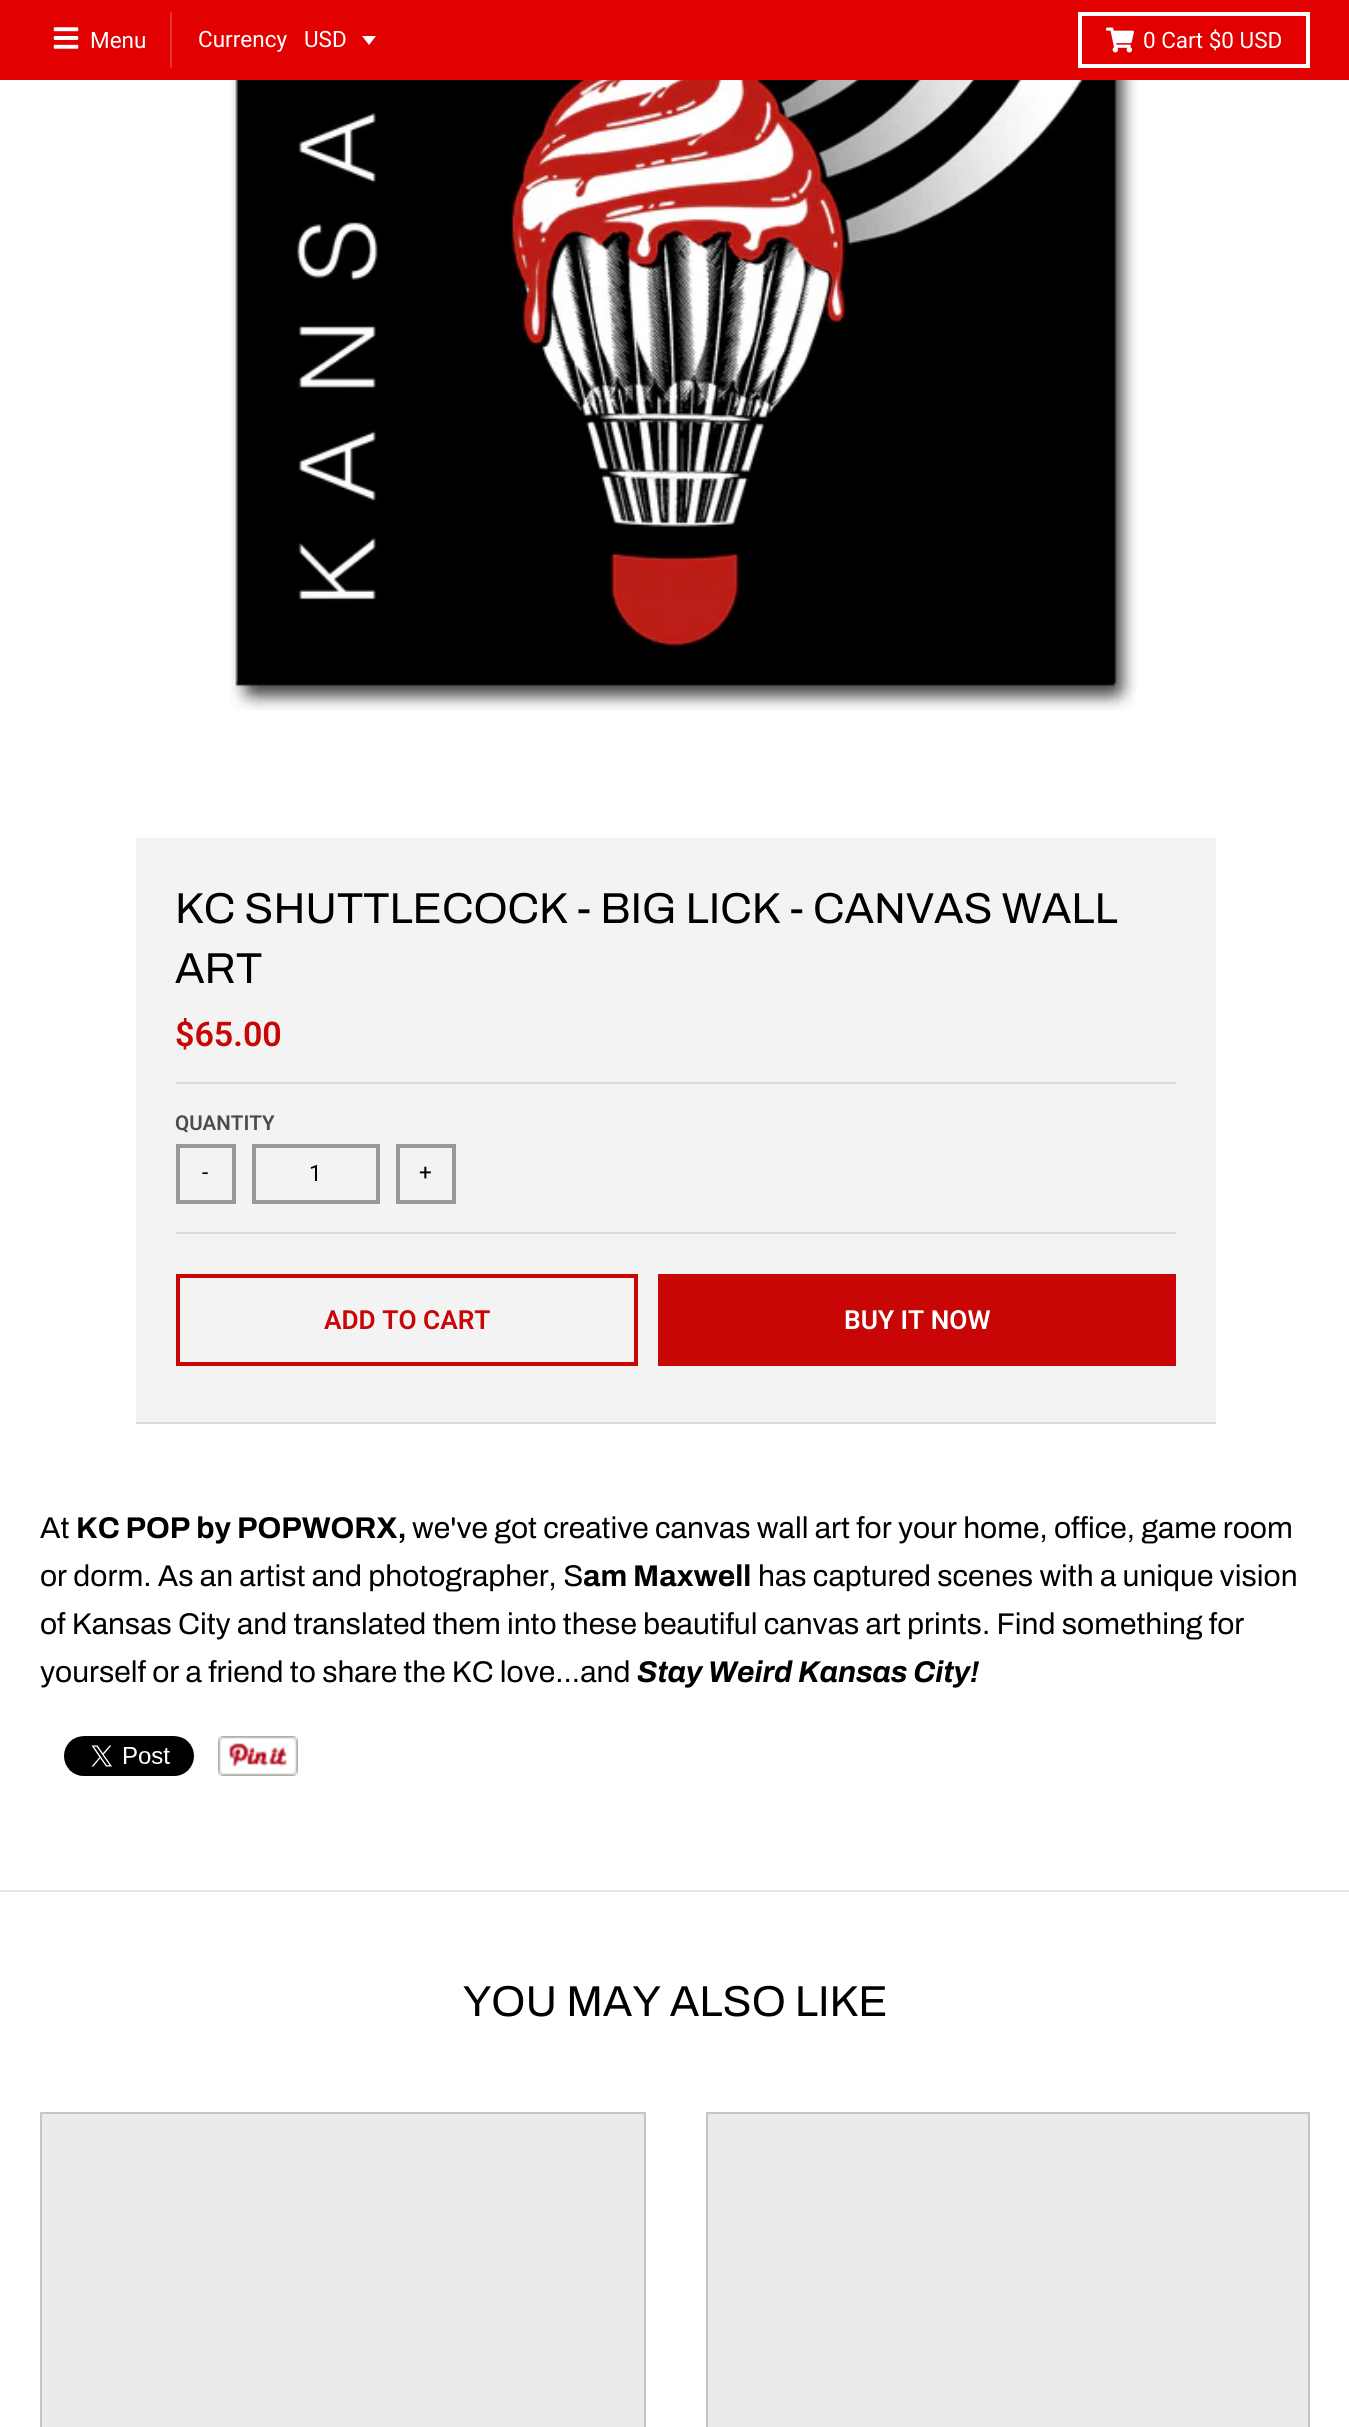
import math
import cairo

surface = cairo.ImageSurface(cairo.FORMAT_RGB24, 1349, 2427)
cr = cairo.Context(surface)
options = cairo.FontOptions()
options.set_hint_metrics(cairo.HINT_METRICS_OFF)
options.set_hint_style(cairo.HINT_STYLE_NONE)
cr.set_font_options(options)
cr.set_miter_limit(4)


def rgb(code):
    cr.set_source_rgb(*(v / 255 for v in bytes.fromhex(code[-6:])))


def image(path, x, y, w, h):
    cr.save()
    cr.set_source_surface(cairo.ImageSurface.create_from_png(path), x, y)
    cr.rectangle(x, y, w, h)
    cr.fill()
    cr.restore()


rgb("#ffffff")
cr.paint()
rgb("#e20000")
cr.rectangle(0, 0, 1349, 80)
cr.fill()
rgb("#e73333")
cr.rectangle(170, 12, 2, 56)
cr.fill()
image("img/1.png", 53, 27, 26, 22)
rgb("#ffffff")
cr.new_path()
cr.move_to(362, 36)
cr.line_to(369, 45)
cr.line_to(376, 36)
cr.close_path()
cr.fill()
cr.rectangle(1080, 14, 228, 52)
cr.set_line_width(4)
cr.stroke()
image("img/2.png", 1106, 27, 28, 26)
rgb("#e5e5e5")
cr.rectangle(0, 1890, 1349, 2)
cr.fill()
image("img/3.png", 230, 80, 907, 631)
for x, y, w, h, color in [
    (136, 838, 1080, 584, "#f3f3f3"),
    (136, 1422, 1080, 2, "#dadada"),
    (176, 1082, 1000, 2, "#dadada"),
    (176, 1232, 1000, 2, "#dadada"),
]:
    rgb(color)
    cr.rectangle(x, y, w, h)
    cr.fill()
cr.rectangle(178, 1146, 56, 56)
rgb("#999999")
cr.stroke()
cr.rectangle(254, 1146, 124, 56)
cr.stroke()
cr.rectangle(398, 1146, 56, 56)
cr.stroke()
cr.rectangle(178, 1276, 458, 88)
rgb("#c80606")
cr.stroke()
cr.rectangle(658, 1274, 518, 92)
cr.fill()
image("img/4.png", 64, 1736, 130, 40)
image("img/5.png", 218, 1736, 80, 40)
rgb("#ebebeb")
cr.rectangle(41, 2113, 604, 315)
cr.fill_preserve()
rgb("#c6c6c6")
cr.set_line_width(2)
cr.stroke()
rgb("#ebebeb")
cr.rectangle(707, 2113, 602, 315)
cr.fill_preserve()
rgb("#c6c6c6")
cr.stroke()
cr.select_font_face("Roboto")
cr.set_font_size(22.5)
rgb("#ffffff")
for x, y, s in [
    (90, 48, "Menu"),
    (198, 47, "Currency"),
    (304, 47, "USD"),
    (1143, 48, "0 Cart $0 USD"),
]:
    cr.move_to(x, y)
    cr.show_text(s)
cr.select_font_face("Archivo")
cr.set_font_size(43.3)
rgb("#000000")
cr.move_to(175, 923)
cr.show_text("KC SHUTTLECOCK - BIG LICK - CANVAS WALL")
cr.move_to(175, 983)
cr.show_text("ART")
cr.select_font_face("Roboto SemiBold")
cr.set_font_size(34)
rgb("#c80606")
cr.move_to(175, 1046)
cr.show_text("$65.00")
cr.set_font_size(20.5)
rgb("#4c4c4c")
cr.move_to(175, 1130)
cr.show_text("QUANTITY")
cr.select_font_face("Roboto")
cr.set_font_size(22.5)
rgb("#000000")
for x, y, s in [
    (202, 1180, "-"),
    (309, 1181, "1"),
    (419, 1180, "+"),
]:
    cr.move_to(x, y)
    cr.show_text(s)
cr.select_font_face("Roboto SemiBold")
cr.set_font_size(26.25)
rgb("#c80606")
cr.move_to(324, 1329)
cr.show_text("ADD TO CART")
rgb("#ffffff")
cr.move_to(844, 1329)
cr.show_text("BUY IT NOW")
cr.select_font_face("Archivo")
cr.set_font_size(30)
rgb("#000000")
cr.move_to(40, 1538)
cr.show_text("At")
cr.select_font_face("Archivo", cairo.FONT_SLANT_NORMAL, cairo.FONT_WEIGHT_BOLD)
cr.move_to(76, 1538)
cr.show_text("KC POP by")
cr.move_to(237, 1538)
cr.show_text("POPWORX,")
cr.select_font_face("Archivo")
cr.move_to(412, 1538)
cr.show_text("we've got creative canvas wall art for your home, office, game room")
cr.move_to(40, 1586)
cr.show_text("or dorm. As an artist and photographer, S")
cr.select_font_face("Archivo", cairo.FONT_SLANT_NORMAL, cairo.FONT_WEIGHT_BOLD)
cr.move_to(583, 1586)
cr.show_text("am Maxwell")
cr.select_font_face("Archivo")
for x, y, s in [
    (758, 1586, "has captured scenes with a unique vision"),
    (40, 1634, "of Kansas City and translated them into these beautiful canvas art prints. Find something for"),
    (40, 1682, "yourself or a friend to share the KC love...and"),
]:
    cr.move_to(x, y)
    cr.show_text(s)
cr.select_font_face("Archivo", cairo.FONT_SLANT_ITALIC, cairo.FONT_WEIGHT_BOLD)
cr.move_to(637, 1682)
cr.show_text("Stay Weird Kansas City!")
cr.select_font_face("Archivo")
cr.set_font_size(43.3)
cr.move_to(463, 2016)
cr.show_text("YOU MAY ALSO LIKE")
surface.write_to_png("page.png")
